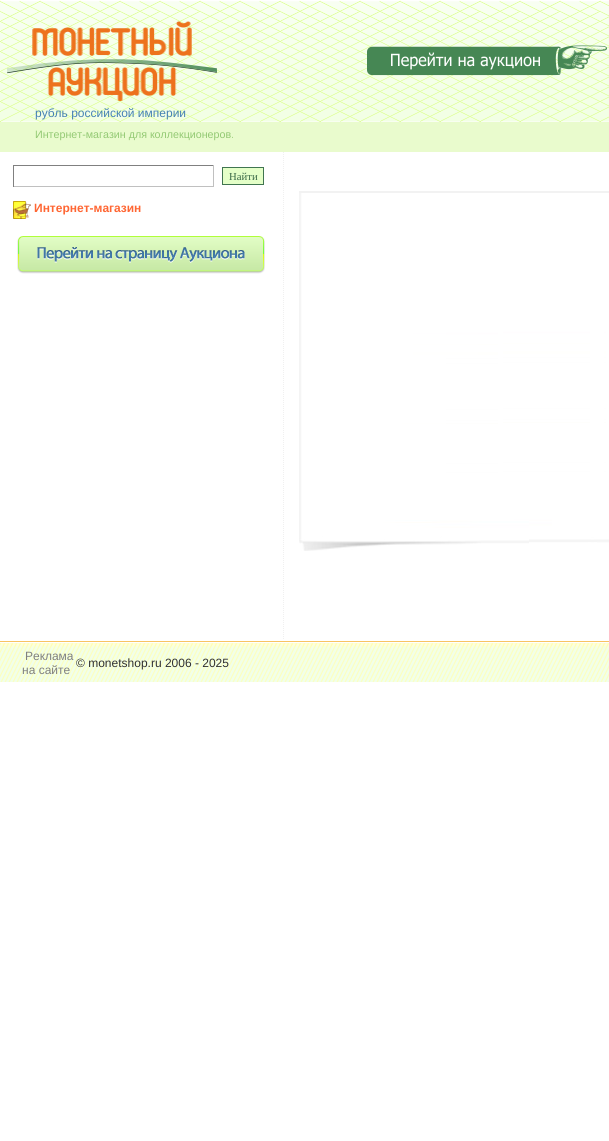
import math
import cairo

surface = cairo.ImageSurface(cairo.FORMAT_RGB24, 609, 1141)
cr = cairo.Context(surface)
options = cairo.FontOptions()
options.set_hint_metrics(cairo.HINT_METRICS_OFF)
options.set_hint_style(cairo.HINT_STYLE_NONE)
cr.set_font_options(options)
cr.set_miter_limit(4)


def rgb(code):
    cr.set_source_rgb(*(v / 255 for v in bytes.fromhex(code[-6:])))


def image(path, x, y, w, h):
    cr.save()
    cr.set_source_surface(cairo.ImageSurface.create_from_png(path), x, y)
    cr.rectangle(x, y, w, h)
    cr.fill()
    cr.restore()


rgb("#ffffff")
cr.paint()
image("img/1.png", 0, 0, 609, 122)
image("img/2.png", 367, 45, 240, 31)
image("img/3.png", 7, 21, 210, 80)
rgb("#e9fbcd")
cr.rectangle(0, 122, 609, 30)
cr.fill()
cr.new_path()
cr.move_to(283.5, 152)
cr.line_to(283.5, 640)
rgb("#f0f0f0")
cr.set_line_width(1)
cr.set_dash([1, 1])
cr.stroke()
for x, y, w, h, color in [
    (13, 165, 201, 1, "#808080"),
    (213, 165, 1, 22, "#c0c0c0"),
    (13, 186, 201, 1, "#c0c0c0"),
    (13, 165, 1, 22, "#808080"),
]:
    rgb(color)
    cr.rectangle(x, y, w, h)
    cr.fill()
rgb("#e4ffc8")
cr.rectangle(222.5, 167.5, 41, 17)
cr.fill_preserve()
rgb("#407550")
cr.set_dash([])
cr.stroke()
image("img/4.png", 13, 201, 18, 18)
image("img/5.png", 17, 236, 248, 38)
image("img/6.png", 299, 193, 310, 358)
rgb("#f2f2f2")
cr.rectangle(299, 191, 310, 2)
cr.fill()
rgb("#f8c361")
cr.rectangle(0, 641, 609, 1)
cr.fill()
image("img/7.png", 0, 643, 609, 39)
cr.select_font_face("Liberation Sans")
cr.set_font_size(12)
rgb("#4682b4")
cr.move_to(35, 117)
cr.show_text("рубль российской империи")
cr.set_font_size(10.7)
rgb("#93c973")
cr.move_to(35, 138)
cr.show_text("Интернет-магазин для коллекционеров.")
cr.select_font_face("Liberation Serif")
rgb("#396946")
cr.move_to(229, 180)
cr.show_text("Найти")
cr.select_font_face("Liberation Sans", cairo.FONT_SLANT_NORMAL, cairo.FONT_WEIGHT_BOLD)
cr.set_font_size(12)
rgb("#ff6633")
cr.move_to(34, 212)
cr.show_text("Интернет-магазин")
cr.select_font_face("Liberation Sans")
rgb("#808080")
cr.move_to(25, 660)
cr.show_text("Реклама")
cr.move_to(22, 674)
cr.show_text("на сайте")
rgb("#313131")
cr.move_to(76, 667)
cr.show_text("© monetshop.ru 2006 - 2025")
surface.write_to_png("page.png")
